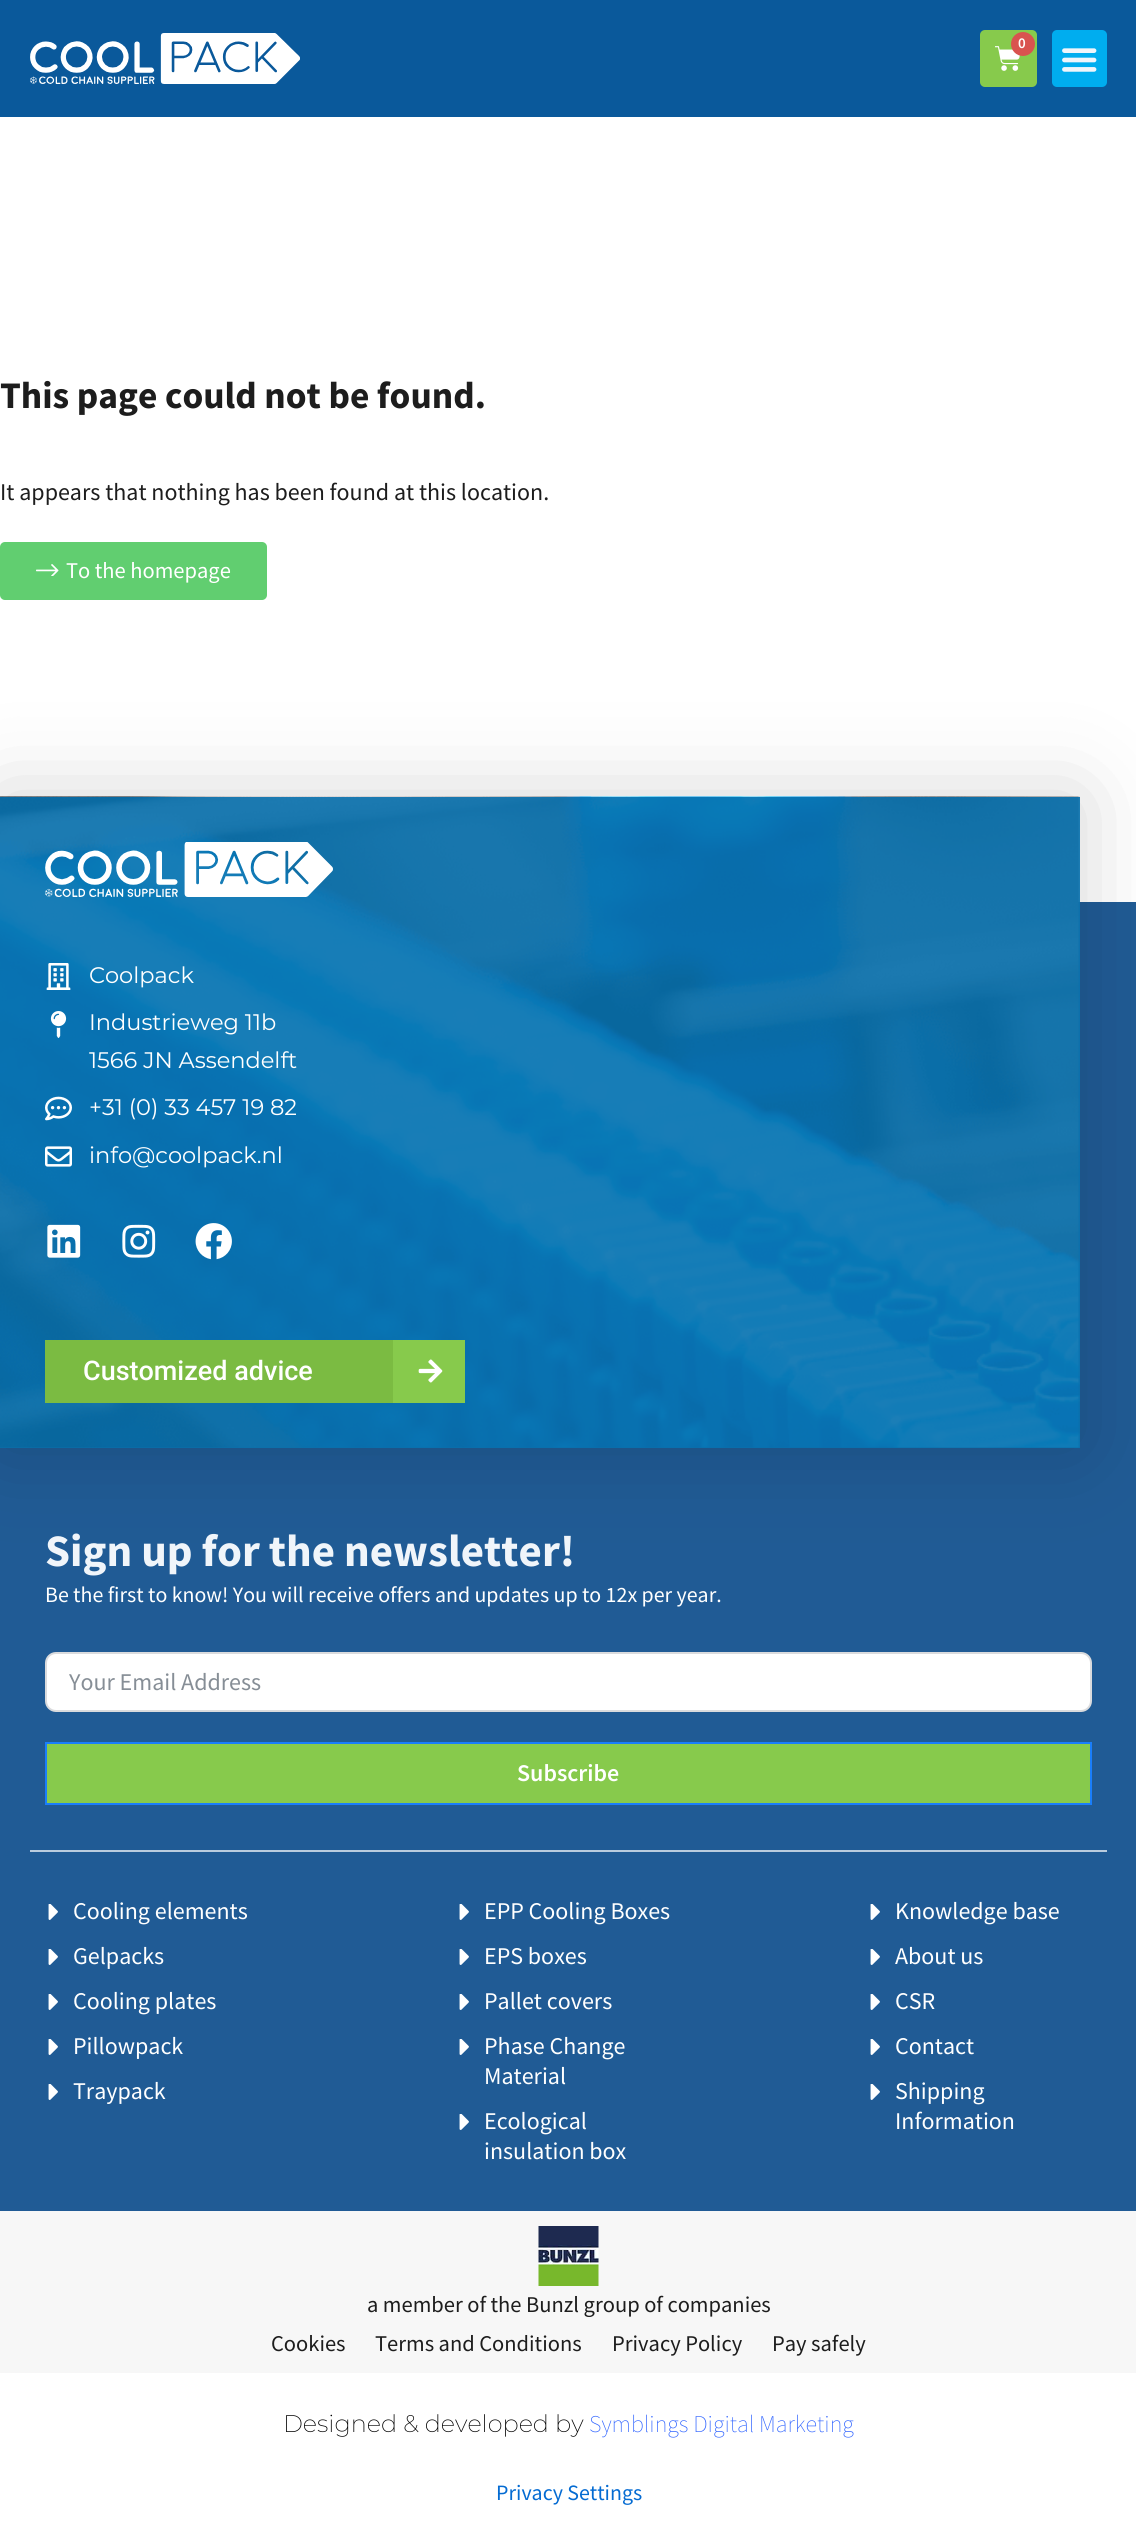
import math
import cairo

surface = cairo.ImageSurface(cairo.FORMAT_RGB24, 1136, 2525)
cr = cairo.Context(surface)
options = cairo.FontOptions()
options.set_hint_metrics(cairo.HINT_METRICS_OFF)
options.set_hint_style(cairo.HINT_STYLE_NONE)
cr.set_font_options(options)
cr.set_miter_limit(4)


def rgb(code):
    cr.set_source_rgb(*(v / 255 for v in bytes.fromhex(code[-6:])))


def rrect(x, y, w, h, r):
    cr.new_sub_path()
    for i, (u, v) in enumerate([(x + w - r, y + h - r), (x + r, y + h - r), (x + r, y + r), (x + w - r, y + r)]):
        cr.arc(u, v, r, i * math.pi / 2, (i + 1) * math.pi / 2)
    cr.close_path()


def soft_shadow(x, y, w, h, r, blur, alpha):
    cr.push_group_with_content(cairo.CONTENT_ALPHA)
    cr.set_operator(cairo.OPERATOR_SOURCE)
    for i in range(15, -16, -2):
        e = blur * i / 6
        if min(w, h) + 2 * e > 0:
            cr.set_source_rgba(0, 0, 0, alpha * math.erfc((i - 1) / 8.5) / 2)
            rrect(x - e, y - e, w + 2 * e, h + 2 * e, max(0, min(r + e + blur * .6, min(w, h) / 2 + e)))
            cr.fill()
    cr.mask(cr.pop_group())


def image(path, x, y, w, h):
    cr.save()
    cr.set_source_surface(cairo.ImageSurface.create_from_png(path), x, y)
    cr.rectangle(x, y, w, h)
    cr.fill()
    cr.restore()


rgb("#ffffff")
cr.paint()
rgb("#0a599b")
cr.rectangle(0, 0, 1136, 117)
cr.fill()
image("img/1.png", 30, 33, 270, 51)
rgb("#87ca4c")
rrect(980, 30, 57, 57, 5)
cr.fill()
image("img/2.png", 995, 46, 25, 25)
rgb("#d9534f")
cr.arc(1023, 44, 12, 0, 2 * math.pi)
cr.fill()
rgb("#00adef")
rrect(1052, 30, 55, 57, 5)
cr.fill()
image("img/3.png", 1062, 48, 35, 24)
rgb("#61ce70")
rrect(0, 542, 267, 58, 5)
cr.fill()
image("img/4.png", 36, 564, 23, 12)
rgb("#205b95")
cr.rectangle(0, 902, 1136, 1309)
cr.fill()
rgb("#000000")
soft_shadow(0, 797, 1080, 651, 0, 44, 0.17)
image("img/5.png", 0, 796, 1080, 652)
cr.set_source_rgba(0.035, 0.451, 0.69, 0.9)
cr.rectangle(0, 797, 1080, 651)
cr.fill()
image("img/6.png", 45, 842, 288, 55)
image("img/7.png", 46, 963, 25, 27)
image("img/8.png", 50, 1011, 17, 27)
image("img/9.png", 45, 1096, 27, 25)
image("img/10.png", 45, 1146, 27, 21)
image("img/11.png", 47, 1224, 34, 34)
image("img/12.png", 122, 1224, 34, 34)
image("img/13.png", 195, 1223, 37, 37)
rgb("#87ca4c")
cr.rectangle(393, 1340, 72, 63)
cr.fill()
rgb("#7bbb42")
cr.rectangle(45, 1340, 348, 63)
cr.fill()
image("img/14.png", 418, 1359, 25, 24)
rgb("#baccde")
cr.rectangle(30, 1850, 1077, 2)
cr.fill()
rgb("#ffffff")
rrect(46, 1653, 1045, 58, 10)
cr.fill_preserve()
rgb("#dadbdd")
cr.stroke()
rgb("#87ca4c")
cr.rectangle(46, 1743, 1045, 61)
cr.fill_preserve()
rgb("#1a7efb")
cr.stroke()
image("img/15.png", 48, 1904, 10, 16)
image("img/15.png", 48, 1949, 10, 16)
image("img/15.png", 48, 1994, 10, 16)
image("img/15.png", 48, 2039, 10, 16)
image("img/15.png", 48, 2084, 10, 16)
image("img/15.png", 459, 1904, 10, 16)
image("img/15.png", 459, 1949, 10, 16)
image("img/15.png", 459, 1994, 10, 16)
image("img/15.png", 459, 2039, 10, 16)
image("img/15.png", 459, 2114, 10, 16)
image("img/15.png", 870, 1904, 10, 16)
image("img/15.png", 870, 1949, 10, 16)
image("img/15.png", 870, 1994, 10, 16)
image("img/15.png", 870, 2039, 10, 16)
image("img/15.png", 870, 2084, 10, 16)
rgb("#f7f7f7")
cr.rectangle(0, 2211, 1136, 162)
cr.fill()
image("img/16.png", 538, 2226, 61, 60)
cr.select_font_face("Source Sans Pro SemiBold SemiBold")
cr.set_font_size(15)
rgb("#ffffff")
cr.move_to(1018, 48)
cr.show_text("0")
cr.select_font_face("Source Sans Pro", cairo.FONT_SLANT_NORMAL, cairo.FONT_WEIGHT_BOLD)
cr.set_font_size(37.5)
rgb("#1d1d1d")
cr.move_to(0, 408)
cr.show_text("This page could not be found.")
cr.select_font_face("Source Sans Pro")
cr.set_font_size(24)
cr.move_to(0, 500)
cr.show_text("It appears that nothing has been found at this location.")
cr.set_font_size(22.5)
rgb("#ffffff")
cr.move_to(66, 578)
cr.show_text("To the homepage")
cr.select_font_face("Montserrat")
for x, y, s in [
    (89, 983, "Coolpack"),
    (89, 1030, "Industrieweg 11b"),
    (89, 1068, "1566 JN Assendelft"),
    (89, 1115, "+31 (0) 33 457 19 82"),
    (89, 1163, "info@coolpack.nl"),
]:
    cr.move_to(x, y)
    cr.show_text(s)
cr.select_font_face("Roboto Medium")
cr.set_font_size(27)
cr.move_to(83, 1380)
cr.show_text("Customized advice")
cr.select_font_face("Source Sans Pro", cairo.FONT_SLANT_NORMAL, cairo.FONT_WEIGHT_BOLD)
cr.set_font_size(45)
rgb("#f0f5fa")
cr.move_to(45, 1566)
cr.show_text("Sign up for the newsletter!")
cr.select_font_face("Source Sans Pro")
cr.set_font_size(21.9)
rgb("#ffffff")
cr.move_to(45, 1602)
cr.show_text("Be the first to know! You will receive offers and updates up to 12x per year.")
cr.set_font_size(24)
rgb("#868e96")
cr.move_to(69, 1690)
cr.show_text("Your Email Address")
cr.select_font_face("Source Sans Pro SemiBold SemiBold")
rgb("#ffffff")
cr.move_to(517, 1781)
cr.show_text("Subscribe")
cr.select_font_face("Source Sans Pro")
for x, y, s in [
    (73, 1919, "Cooling elements"),
    (73, 1964, "Gelpacks"),
    (73, 2009, "Cooling plates"),
    (73, 2054, "Pillowpack"),
    (73, 2099, "Traypack"),
    (484, 1919, "EPP Cooling Boxes"),
    (484, 1964, "EPS boxes"),
    (484, 2009, "Pallet covers"),
    (484, 2054, "Phase Change"),
    (484, 2084, "Material"),
    (484, 2129, "Ecological"),
    (484, 2159, "insulation box"),
    (895, 1919, "Knowledge base"),
    (895, 1964, "About us"),
    (895, 2009, "CSR"),
    (895, 2054, "Contact"),
    (895, 2099, "Shipping"),
    (895, 2129, "Information"),
]:
    cr.move_to(x, y)
    cr.show_text(s)
cr.set_font_size(22.5)
rgb("#1d1d1d")
for x, y, s in [
    (367, 2312, "a member of the Bunzl group of companies"),
    (271, 2351, "Cookies"),
    (375, 2351, "Terms and Conditions"),
    (612, 2351, "Privacy Policy"),
    (772, 2351, "Pay safely"),
]:
    cr.move_to(x, y)
    cr.show_text(s)
cr.select_font_face("Montserrat ExtraLight")
cr.set_font_size(24)
rgb("#000000")
cr.move_to(283, 2432)
cr.show_text("Designed & developed by")
cr.select_font_face("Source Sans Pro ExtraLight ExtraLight")
rgb("#3366ff")
cr.move_to(589, 2432)
cr.show_text("Symblings Digital Marketing")
cr.select_font_face("Source Sans Pro")
cr.set_font_size(21.9)
rgb("#046bd2")
cr.move_to(496, 2500)
cr.show_text("Privacy Settings")
surface.write_to_png("page.png")
